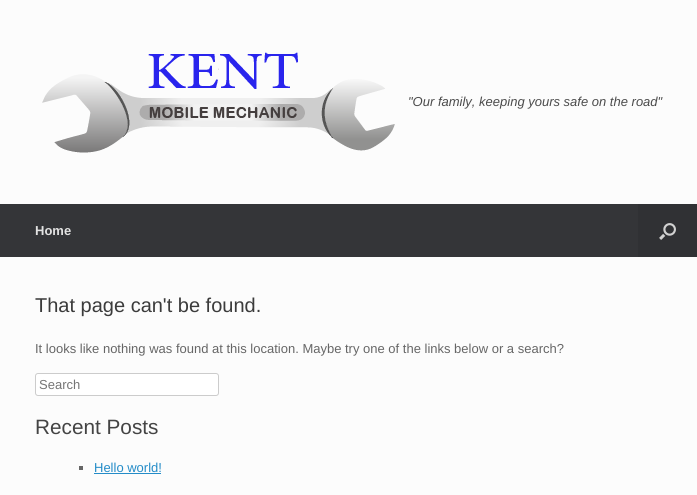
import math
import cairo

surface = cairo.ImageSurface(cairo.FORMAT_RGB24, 697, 495)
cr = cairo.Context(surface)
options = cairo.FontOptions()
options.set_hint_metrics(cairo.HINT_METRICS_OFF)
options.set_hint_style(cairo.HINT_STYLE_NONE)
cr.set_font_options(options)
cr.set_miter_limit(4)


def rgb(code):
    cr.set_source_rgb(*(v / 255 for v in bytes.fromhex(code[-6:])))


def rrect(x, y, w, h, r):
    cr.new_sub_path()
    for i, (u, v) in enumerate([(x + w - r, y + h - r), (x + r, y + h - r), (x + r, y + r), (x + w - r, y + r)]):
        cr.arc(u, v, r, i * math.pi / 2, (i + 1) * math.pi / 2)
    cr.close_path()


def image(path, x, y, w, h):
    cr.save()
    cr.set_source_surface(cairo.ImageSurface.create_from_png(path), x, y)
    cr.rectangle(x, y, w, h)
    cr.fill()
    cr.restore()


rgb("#fcfcfc")
cr.paint()
image("img/1.png", 42, 52, 353, 101)
rgb("#343538")
cr.rectangle(0, 204, 638, 53)
cr.fill()
rgb("#303134")
cr.rectangle(638, 204, 59, 53)
cr.fill()
image("img/2.png", 659, 223, 17, 17)
rgb("#ffffff")
rrect(35.5, 373.5, 183, 22, 2.5)
cr.fill_preserve()
rgb("#cccccc")
cr.set_line_width(1)
cr.stroke()
rgb("#666666")
cr.rectangle(79, 466, 4, 4)
cr.fill()
rgb("#248cc8")
cr.rectangle(94, 473, 67, 1)
cr.fill()
cr.select_font_face("Liberation Sans", cairo.FONT_SLANT_ITALIC)
cr.set_font_size(13)
rgb("#4b4b4b")
cr.move_to(408, 106)
cr.show_text("\"Our family, keeping yours safe on the road\"")
cr.select_font_face("Liberation Sans", cairo.FONT_SLANT_NORMAL, cairo.FONT_WEIGHT_BOLD)
rgb("#e2e2e2")
cr.move_to(35, 235)
cr.show_text("Home")
cr.select_font_face("Liberation Sans")
cr.set_font_size(20)
rgb("#3b3b3b")
cr.move_to(35, 312)
cr.show_text("That page can't be found.")
cr.set_font_size(13)
rgb("#666666")
cr.move_to(35, 353)
cr.show_text("It looks like nothing was found at this location. Maybe try one of the links below or a search?")
rgb("#757575")
cr.move_to(39, 389)
cr.show_text("Search")
cr.set_font_size(20.75)
rgb("#444444")
cr.move_to(35, 434)
cr.show_text("Recent Posts")
cr.set_font_size(13)
rgb("#248cc8")
cr.move_to(94, 472)
cr.show_text("Hello world!")
surface.write_to_png("page.png")
